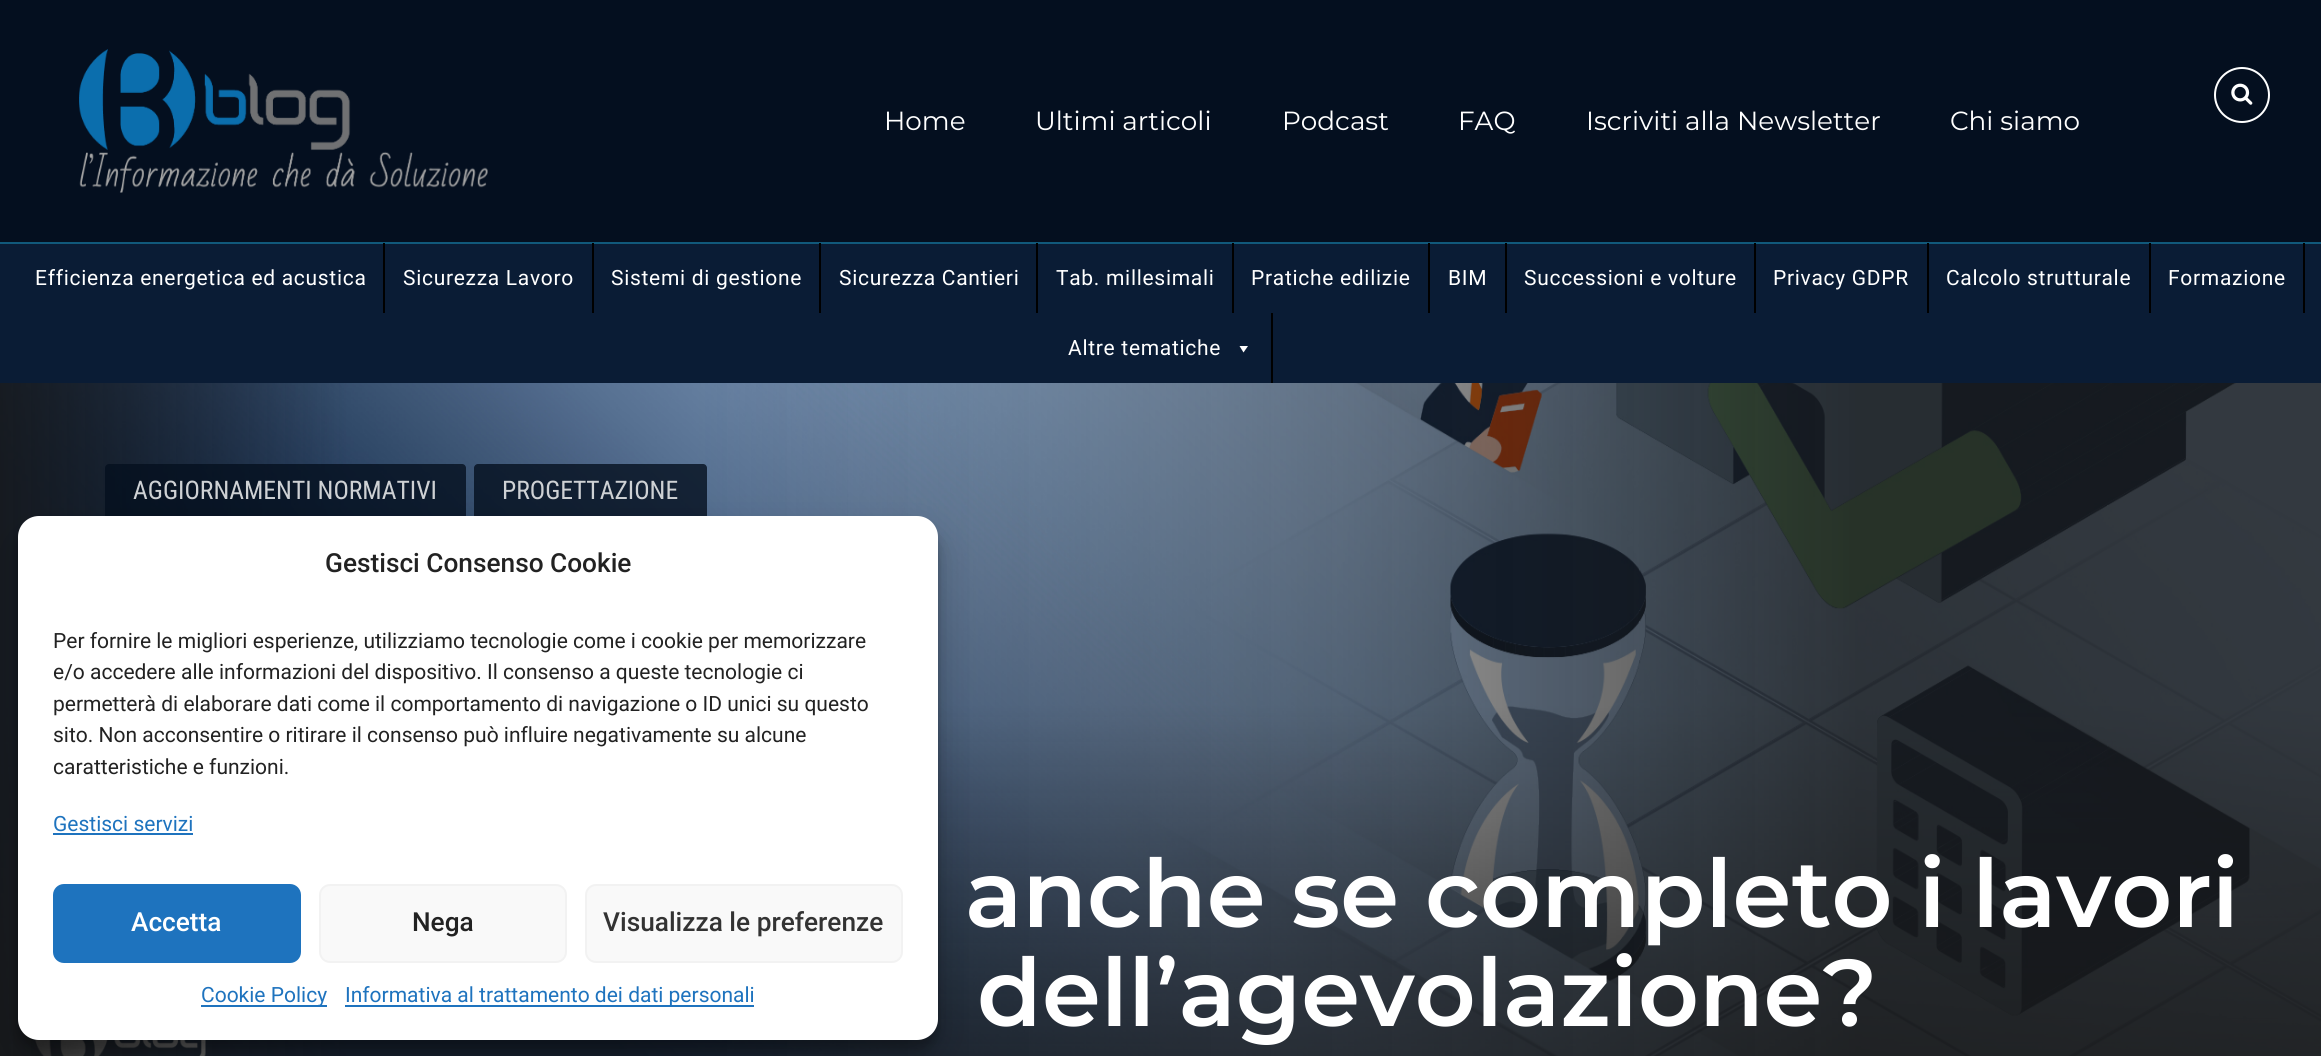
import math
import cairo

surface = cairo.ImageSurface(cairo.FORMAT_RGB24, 2321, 1056)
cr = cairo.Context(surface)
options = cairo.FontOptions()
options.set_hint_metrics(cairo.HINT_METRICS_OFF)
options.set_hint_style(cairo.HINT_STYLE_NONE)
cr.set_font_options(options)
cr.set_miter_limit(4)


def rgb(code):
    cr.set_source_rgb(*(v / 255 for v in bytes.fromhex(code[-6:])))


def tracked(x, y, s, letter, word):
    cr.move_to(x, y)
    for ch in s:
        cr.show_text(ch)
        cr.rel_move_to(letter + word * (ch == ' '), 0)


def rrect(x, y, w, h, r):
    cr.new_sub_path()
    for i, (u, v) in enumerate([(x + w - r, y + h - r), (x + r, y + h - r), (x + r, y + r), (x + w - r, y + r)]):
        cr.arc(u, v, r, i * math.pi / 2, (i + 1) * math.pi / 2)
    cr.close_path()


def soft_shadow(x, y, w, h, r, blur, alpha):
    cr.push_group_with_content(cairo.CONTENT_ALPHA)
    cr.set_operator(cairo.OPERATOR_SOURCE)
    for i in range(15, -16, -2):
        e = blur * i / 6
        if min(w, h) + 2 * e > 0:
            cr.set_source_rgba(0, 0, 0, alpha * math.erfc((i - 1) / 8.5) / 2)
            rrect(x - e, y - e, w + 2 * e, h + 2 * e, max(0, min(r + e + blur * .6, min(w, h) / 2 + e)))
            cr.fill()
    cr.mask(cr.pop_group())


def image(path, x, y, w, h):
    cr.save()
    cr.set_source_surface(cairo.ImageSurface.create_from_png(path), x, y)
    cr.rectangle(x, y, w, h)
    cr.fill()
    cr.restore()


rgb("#0a1c35")
cr.paint()
rgb("#040f1f")
cr.rectangle(0, 0, 2321, 242)
cr.fill()
image("img/1.png", 79, 49, 409, 144)
cr.arc(2242, 95, 27, 0, 2 * math.pi)
rgb("#ffffff")
cr.stroke()
image("img/2.png", 2231, 83, 22, 22)
for x, y, w, h, color in [
    (0, 242, 2321, 2, "#11597b"),
    (383, 243, 2, 70, "#000000"),
    (592, 243, 2, 70, "#000000"),
    (819, 243, 2, 70, "#000000"),
    (1036, 243, 2, 70, "#000000"),
    (1232, 243, 2, 70, "#000000"),
    (1428, 243, 2, 70, "#000000"),
    (1505, 243, 2, 70, "#000000"),
    (1754, 243, 2, 70, "#000000"),
    (1927, 243, 2, 70, "#000000"),
    (2149, 243, 2, 70, "#000000"),
    (2303, 243, 2, 70, "#000000"),
    (1271, 313, 2, 70, "#000000"),
]:
    rgb(color)
    cr.rectangle(x, y, w, h)
    cr.fill()
rgb("#ffffff")
cr.new_path()
cr.move_to(1248, 346)
cr.line_to(1243.5, 352.5)
cr.line_to(1239.5, 346)
cr.close_path()
cr.fill()
image("img/3.png", 0, 383, 2321, 673)
cr.set_source_rgba(0.016, 0.059, 0.122, 0.8)
rrect(105, 464, 361, 56, 4)
cr.fill()
rrect(474, 464, 233, 56, 4)
cr.fill()
rgb("#000000")
soft_shadow(18, 527, 920, 523, 21, 5, 0.23)
soft_shadow(18, 534, 920, 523, 21, 17.5, 0.19)
rgb("#ffffff")
rrect(18, 516, 920, 524, 21)
cr.fill()
rgb("#1e73be")
cr.rectangle(53, 833, 140, 2)
cr.fill()
rrect(54, 885, 246, 77, 10)
cr.fill_preserve()
cr.stroke()
rgb("#f9f9f9")
rrect(320, 885, 246, 77, 10)
cr.fill_preserve()
rgb("#f2f2f2")
cr.stroke()
rgb("#f9f9f9")
rrect(586, 885, 316, 77, 10)
cr.fill_preserve()
rgb("#f2f2f2")
cr.stroke()
rgb("#1e73be")
cr.rectangle(201, 1005, 126, 2)
cr.fill()
cr.rectangle(345, 1005, 409, 2)
cr.fill()
cr.select_font_face("Montserrat")
cr.set_font_size(26.25)
rgb("#ffffff")
for x, y, s in [
    (884, 130, "Home"),
    (1035, 130, "Ultimi articoli"),
    (1282, 130, "Podcast"),
    (1458, 130, "FAQ"),
    (1586, 130, "Iscriviti alla Newsletter"),
    (1950, 130, "Chi siamo"),
]:
    cr.move_to(x, y)
    cr.show_text(s)
cr.select_font_face("Roboto")
cr.set_font_size(21)
for x, y, s in [
    (35, 285, "Efficienza energetica ed acustica"),
    (403, 285, "Sicurezza Lavoro"),
    (611, 285, "Sistemi di gestione"),
    (839, 285, "Sicurezza Cantieri"),
    (1056, 285, "Tab. millesimali"),
    (1251, 285, "Pratiche edilizie"),
    (1448, 285, "BIM"),
    (1524, 285, "Successioni e volture"),
    (1773, 285, "Privacy GDPR"),
    (1946, 285, "Calcolo strutturale"),
    (2168, 285, "Formazione"),
    (1068, 355, "Altre tematiche"),
]:
    tracked(x, y, s, 0.7, 0)
cr.select_font_face("Roboto Condensed")
cr.set_font_size(25.6)
rgb("#ced1d4")
cr.move_to(133, 499)
cr.show_text("AGGIORNAMENTI NORMATIVI")
cr.move_to(502, 499)
cr.show_text("PROGETTAZIONE")
cr.select_font_face("Montserrat SemiBold")
cr.set_font_size(94.5)
rgb("#ffffff")
cr.move_to(965, 927)
cr.show_text("anche se completo i lavori")
cr.move_to(977, 1026)
cr.show_text("dell’agevolazione?")
cr.select_font_face("Roboto Medium")
cr.set_font_size(26.25)
rgb("#222222")
cr.move_to(325, 572)
cr.show_text("Gestisci Consenso Cookie")
cr.select_font_face("Roboto")
cr.set_font_size(21)
for x, y, s in [
    (53, 648, "Per fornire le migliori esperienze, utilizziamo tecnologie come i cookie per memorizzare"),
    (53, 679, "e/o accedere alle informazioni del dispositivo. Il consenso a queste tecnologie ci"),
    (53, 711, "permetterà di elaborare dati come il comportamento di navigazione o ID unici su questo"),
    (53, 742, "sito. Non acconsentire o ritirare il consenso può influire negativamente su alcune"),
    (53, 774, "caratteristiche e funzioni."),
]:
    cr.move_to(x, y)
    cr.show_text(s)
rgb("#1e73be")
cr.move_to(53, 831)
cr.show_text("Gestisci servizi")
cr.select_font_face("Roboto Medium")
cr.set_font_size(26.25)
rgb("#ffffff")
cr.move_to(131, 931)
cr.show_text("Accetta")
rgb("#222222")
cr.move_to(412, 931)
cr.show_text("Nega")
rgb("#333333")
cr.move_to(603, 931)
cr.show_text("Visualizza le preferenze")
cr.select_font_face("Roboto")
cr.set_font_size(21)
rgb("#1e73be")
cr.move_to(201, 1002)
cr.show_text("Cookie Policy")
cr.move_to(345, 1002)
cr.show_text("Informativa al trattamento dei dati personali")
surface.write_to_png("page.png")
